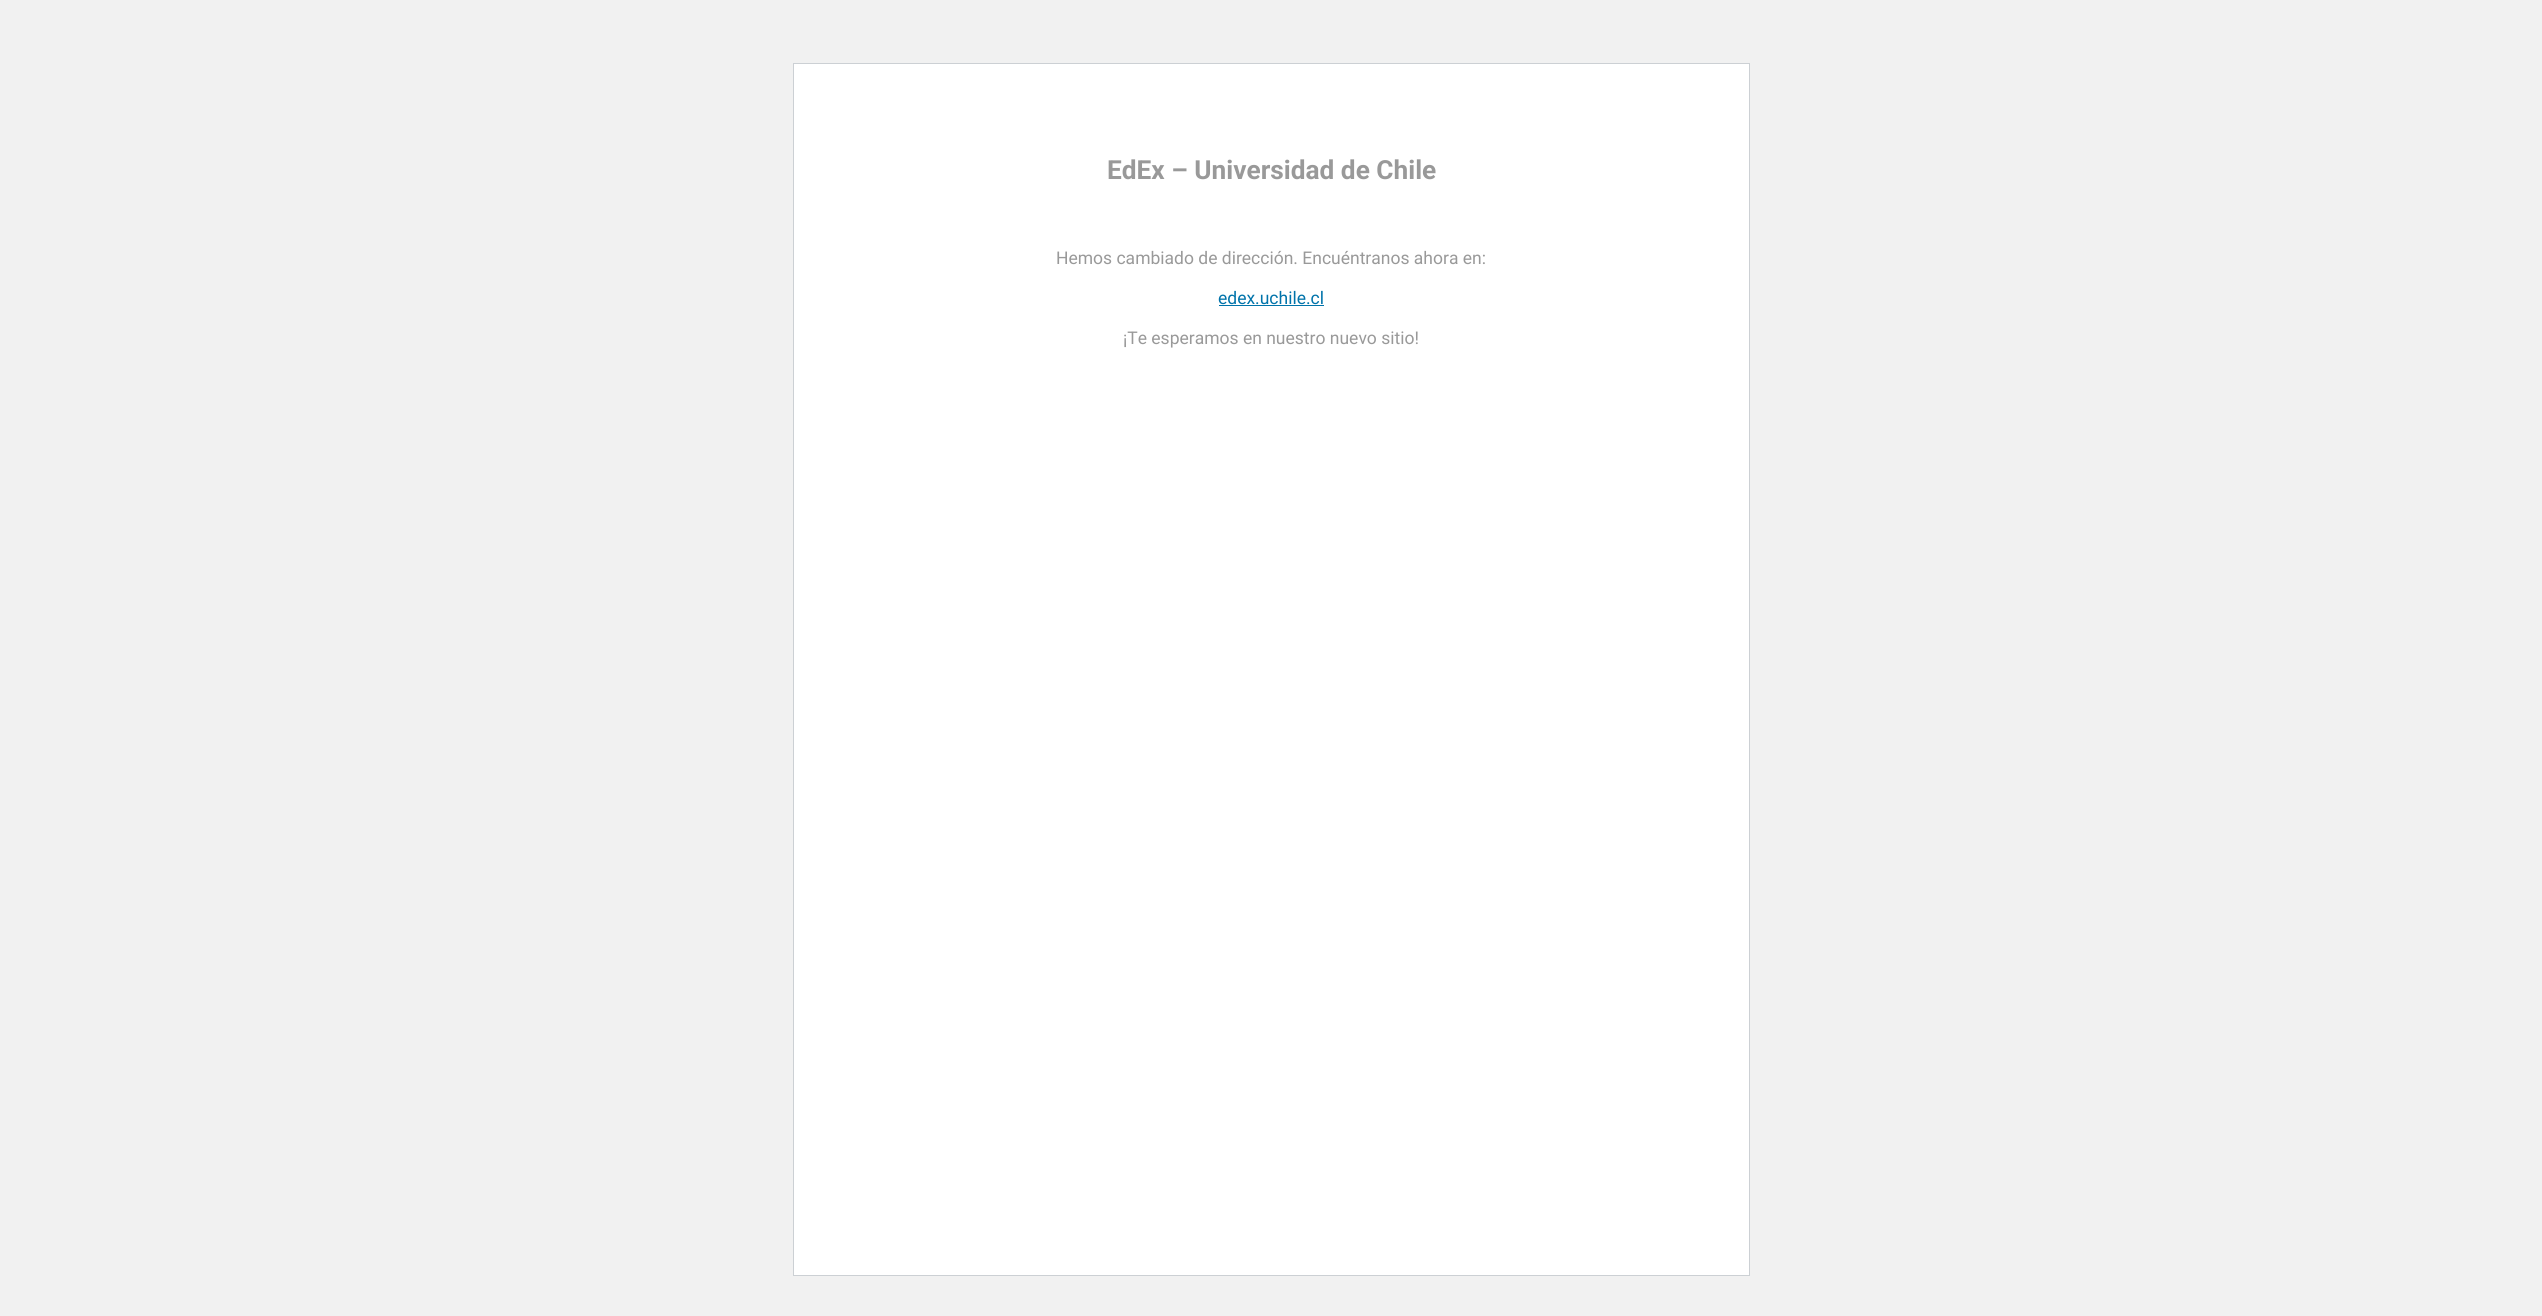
import math
import cairo

surface = cairo.ImageSurface(cairo.FORMAT_RGB24, 2542, 1316)
cr = cairo.Context(surface)
options = cairo.FontOptions()
options.set_hint_metrics(cairo.HINT_METRICS_OFF)
options.set_hint_style(cairo.HINT_STYLE_NONE)
cr.set_font_options(options)
cr.set_miter_limit(4)


def rgb(code):
    cr.set_source_rgb(*(v / 255 for v in bytes.fromhex(code[-6:])))


rgb("#f1f1f1")
cr.paint()
rgb("#ffffff")
cr.rectangle(793.5, 63.5, 956, 1212)
cr.fill_preserve()
rgb("#ccd0d4")
cr.set_line_width(1)
cr.stroke()
rgb("#0073aa")
cr.rectangle(1219, 305, 105, 1)
cr.fill()
cr.select_font_face("Roboto", cairo.FONT_SLANT_NORMAL, cairo.FONT_WEIGHT_BOLD)
cr.set_font_size(26.25)
rgb("#999999")
cr.move_to(1107, 179)
cr.show_text("EdEx – Universidad de Chile")
cr.select_font_face("Roboto")
cr.set_font_size(17.5)
cr.move_to(1056, 264)
cr.show_text("Hemos cambiado de dirección. Encuéntranos ahora en:")
rgb("#0073aa")
cr.move_to(1218, 304)
cr.show_text("edex.uchile.cl")
rgb("#999999")
cr.move_to(1123, 344)
cr.show_text("¡Te esperamos en nuestro nuevo sitio!")
surface.write_to_png("page.png")
